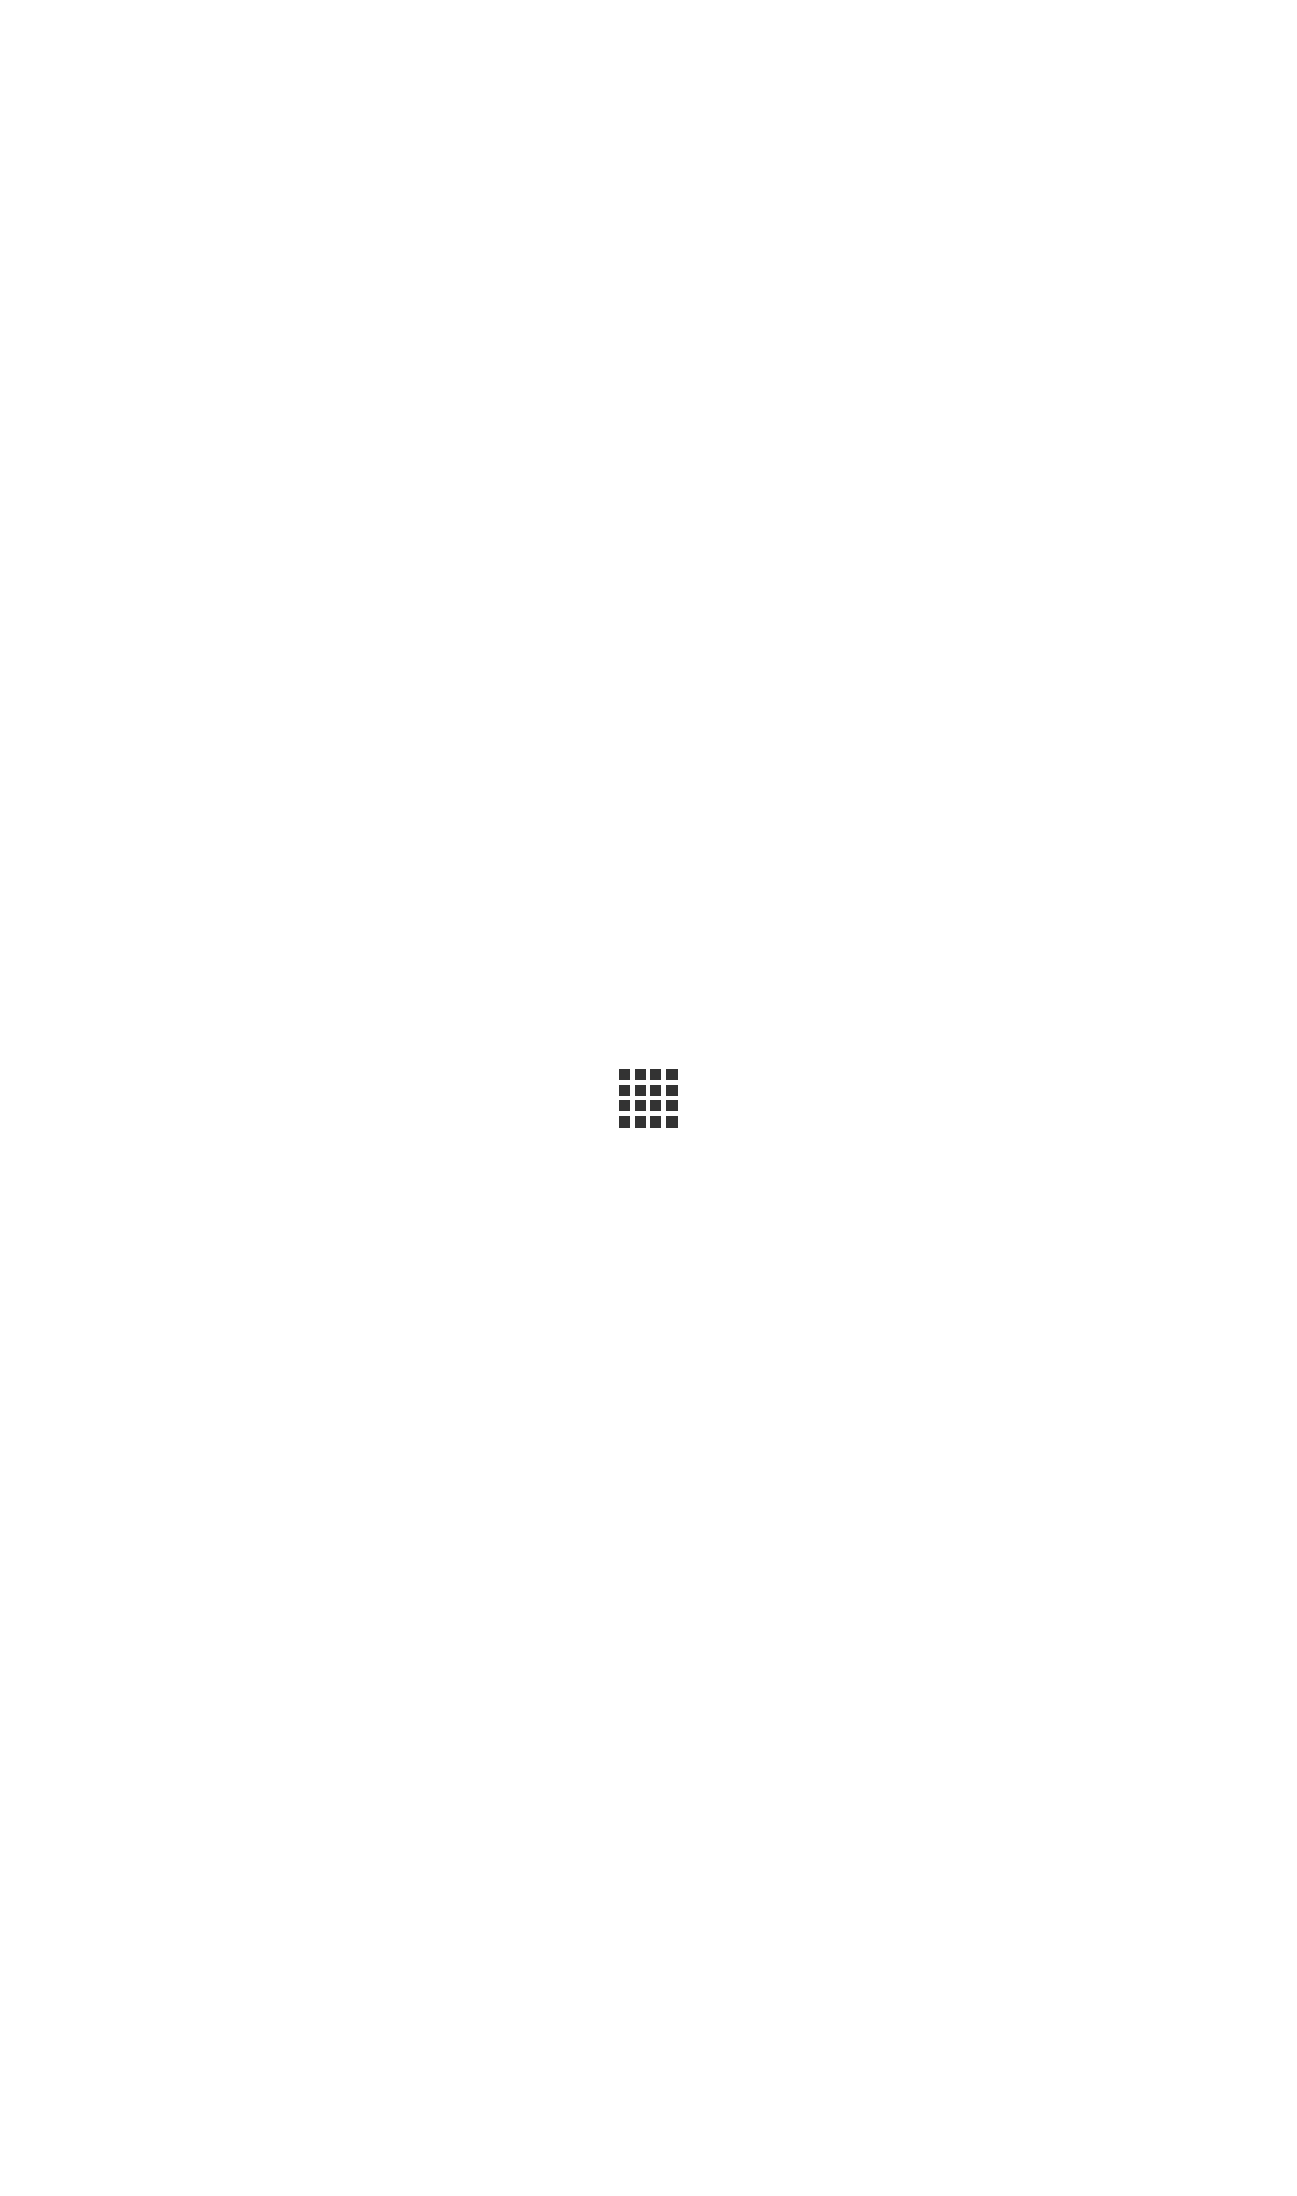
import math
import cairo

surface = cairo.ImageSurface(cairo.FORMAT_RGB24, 1297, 2196)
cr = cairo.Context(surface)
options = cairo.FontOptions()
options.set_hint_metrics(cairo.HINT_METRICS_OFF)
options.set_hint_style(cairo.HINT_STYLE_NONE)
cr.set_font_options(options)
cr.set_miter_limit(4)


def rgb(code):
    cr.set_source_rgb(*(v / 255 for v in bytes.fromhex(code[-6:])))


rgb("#ffffff")
cr.paint()
for x, y, w, h, color in [
    (619, 1069, 11, 11, "#333333"),
    (635, 1069, 11, 11, "#333333"),
    (650, 1069, 11, 11, "#333333"),
    (666, 1069, 12, 11, "#333333"),
    (619, 1085, 11, 11, "#333333"),
    (635, 1085, 11, 11, "#333333"),
    (650, 1085, 11, 11, "#333333"),
    (666, 1085, 12, 11, "#333333"),
    (619, 1100, 11, 11, "#333333"),
    (635, 1100, 11, 11, "#333333"),
    (650, 1100, 11, 11, "#333333"),
    (666, 1100, 12, 11, "#333333"),
    (619, 1116, 11, 12, "#333333"),
    (635, 1116, 11, 12, "#333333"),
    (650, 1116, 11, 12, "#333333"),
    (666, 1116, 12, 12, "#333333"),
]:
    rgb(color)
    cr.rectangle(x, y, w, h)
    cr.fill()
surface.write_to_png("page.png")
